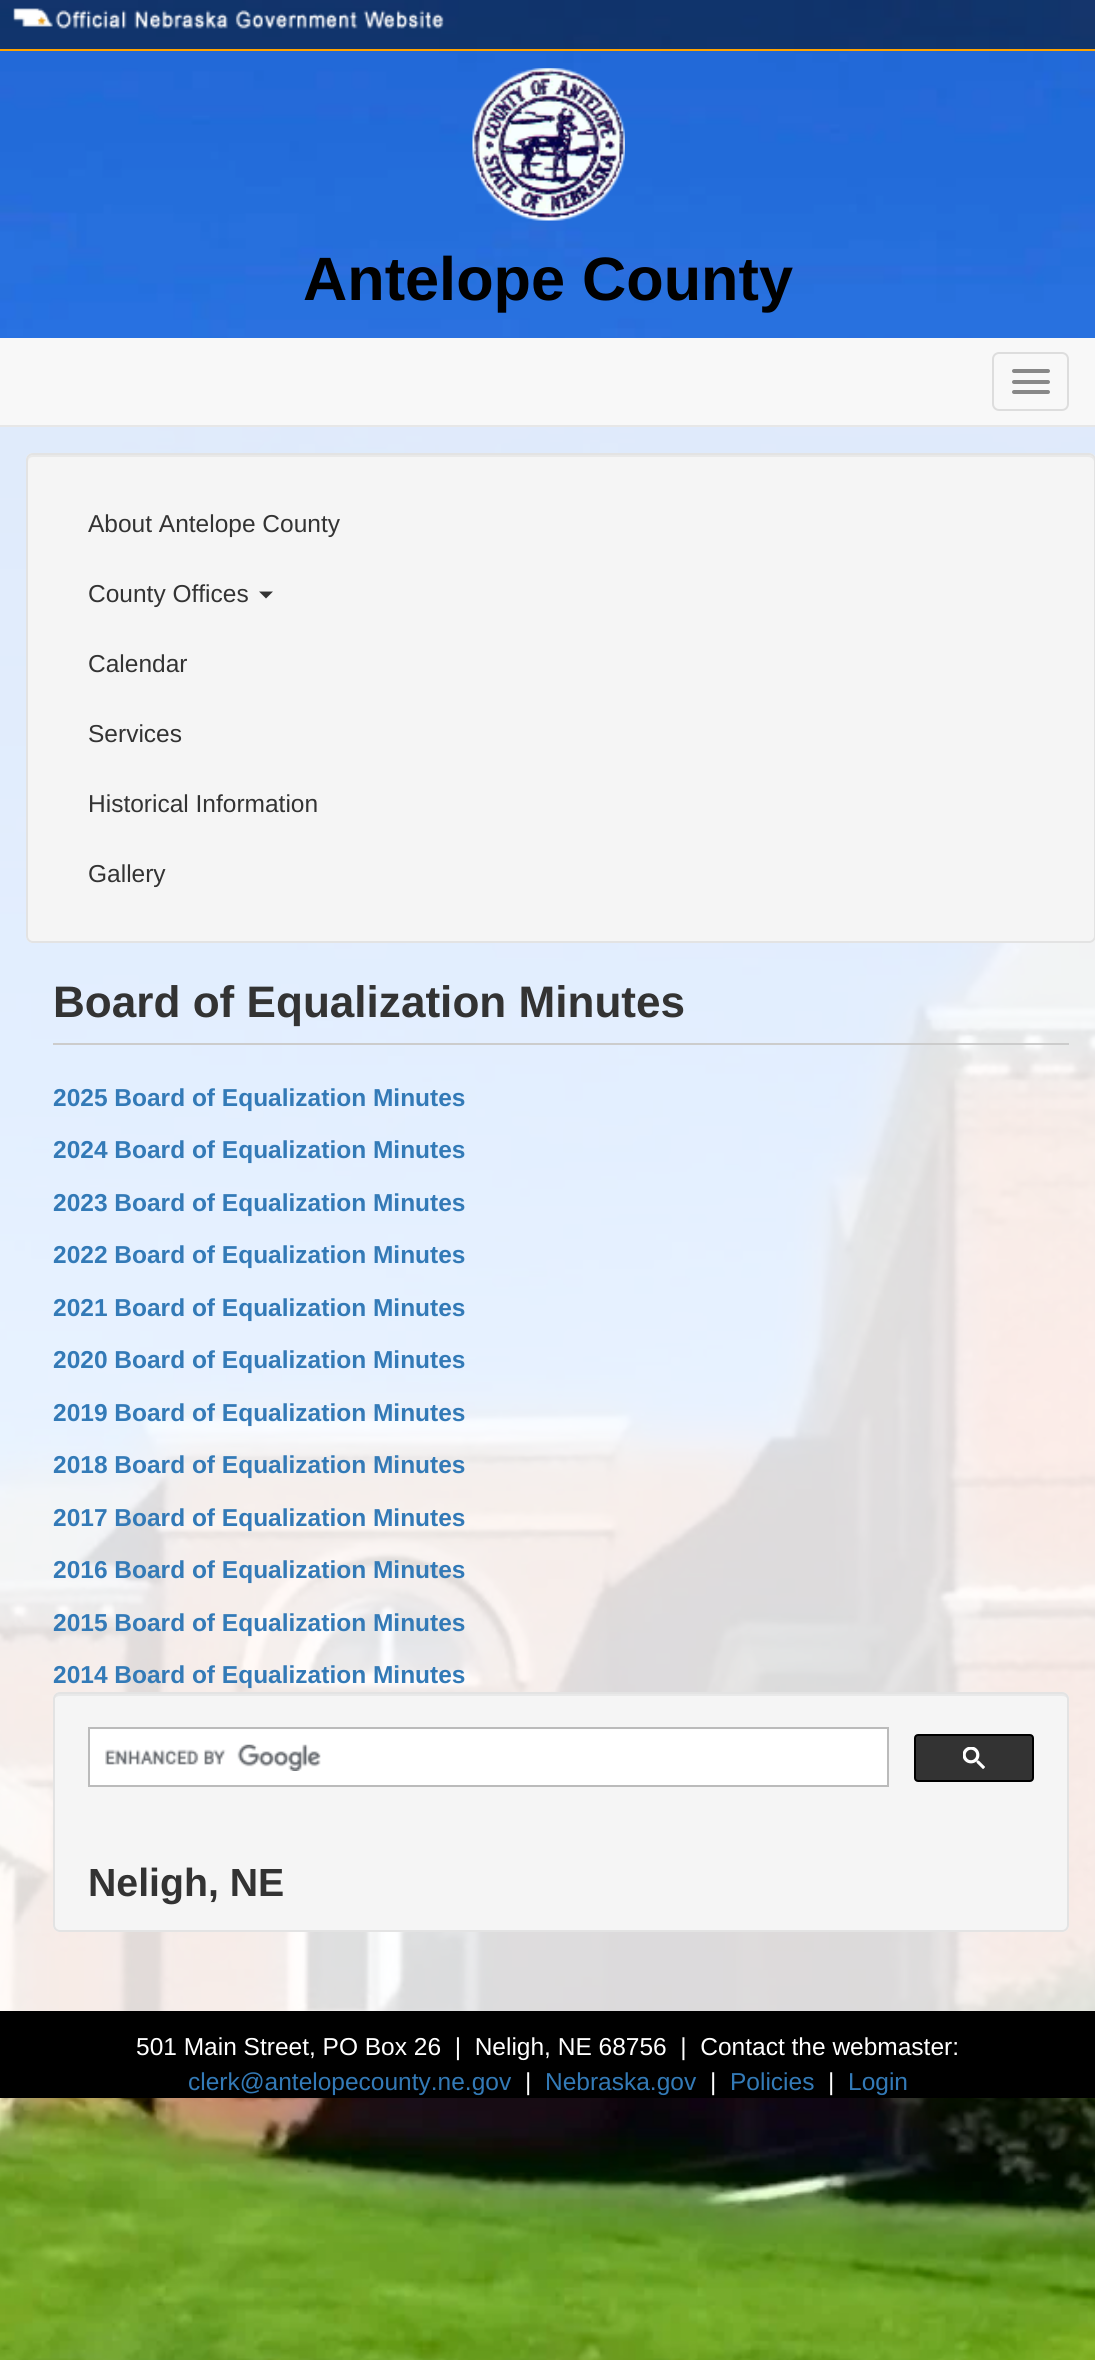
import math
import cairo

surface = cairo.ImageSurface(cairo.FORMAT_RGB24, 1095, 2360)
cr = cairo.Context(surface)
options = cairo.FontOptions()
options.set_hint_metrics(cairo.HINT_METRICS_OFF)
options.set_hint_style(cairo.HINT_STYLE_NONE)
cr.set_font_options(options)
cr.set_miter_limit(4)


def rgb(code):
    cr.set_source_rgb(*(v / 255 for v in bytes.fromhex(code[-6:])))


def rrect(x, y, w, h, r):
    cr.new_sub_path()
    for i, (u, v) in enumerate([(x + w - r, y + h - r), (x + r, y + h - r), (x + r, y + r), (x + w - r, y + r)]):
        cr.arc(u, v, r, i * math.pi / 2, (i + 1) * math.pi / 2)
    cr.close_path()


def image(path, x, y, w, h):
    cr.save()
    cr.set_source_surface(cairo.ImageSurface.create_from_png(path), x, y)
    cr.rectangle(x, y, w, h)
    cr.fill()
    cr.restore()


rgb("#ffffff")
cr.paint()
image("img/1.png", 0, 0, 1095, 2360)
cr.set_source_rgba(0, 0, 0, 0.5)
cr.rectangle(0, 0, 1095, 49)
cr.fill()
rgb("#ffa300")
cr.rectangle(0, 49, 1095, 2)
cr.fill()
image("img/2.png", 13, 8, 431, 21)
image("img/3.png", 472, 68, 153, 153)
rgb("#f8f8f8")
cr.rectangle(0, 338, 1095, 87)
cr.fill()
rgb("#e7e7e7")
cr.rectangle(0, 425, 1095, 2)
cr.fill()
rrect(993, 353, 75, 57, 6)
rgb("#dddddd")
cr.stroke()
rgb("#888888")
rrect(1012, 369, 38, 4, 2)
cr.fill()
rrect(1012, 380, 38, 4, 2)
cr.fill()
rrect(1012, 390, 38, 4, 2)
cr.fill()
cr.set_source_rgba(1, 1, 1, 0.85)
cr.rectangle(0, 427, 1095, 1584)
cr.fill()
rgb("#f5f5f5")
rrect(26, 453, 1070, 490, 7)
cr.fill()
rgb("#e9e9e9")
cr.new_path()
cr.move_to(33, 457)
cr.line_to(1088, 457)
cr.curve_to(1091, 457, 1094, 459, 1094, 462)
cr.line_to(1094, 460)
cr.curve_to(1094, 457, 1092, 455, 1089, 455)
cr.line_to(33, 455)
cr.curve_to(30, 455, 28, 457, 28, 460)
cr.line_to(28, 462)
cr.curve_to(28, 459, 30, 457, 33, 457)
cr.close_path()
cr.fill()
rrect(27, 454, 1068, 488, 6)
rgb("#e3e3e3")
cr.stroke()
rgb("#333333")
cr.new_path()
cr.move_to(259, 591.5)
cr.line_to(273, 591.5)
cr.line_to(266, 598.5)
cr.close_path()
cr.fill()
rgb("#cccccc")
cr.rectangle(53, 1043, 1016, 2)
cr.fill()
rgb("#f5f5f5")
rrect(53, 1692, 1016, 240, 7)
cr.fill()
rgb("#e9e9e9")
cr.new_path()
cr.move_to(60, 1696)
cr.line_to(1062, 1696)
cr.curve_to(1065, 1696, 1068, 1698, 1068, 1701)
cr.line_to(1068, 1699)
cr.curve_to(1068, 1696, 1066, 1694, 1063, 1694)
cr.line_to(59, 1694)
cr.curve_to(56, 1694, 54, 1696, 54, 1699)
cr.line_to(54, 1701)
cr.curve_to(54, 1698, 57, 1696, 60, 1696)
cr.close_path()
cr.fill()
rrect(54, 1693, 1014, 238, 6)
rgb("#e3e3e3")
cr.stroke()
rgb("#ffffff")
cr.rectangle(89, 1728, 799, 58)
cr.fill_preserve()
rgb("#bbbbbb")
cr.stroke()
image("img/4.png", 105, 1744, 216, 27)
rgb("#333333")
rrect(915, 1735, 118, 46, 3)
cr.fill_preserve()
rgb("#000000")
cr.stroke()
image("img/5.png", 963, 1747, 22, 22)
cr.rectangle(0, 2011, 1095, 87)
cr.fill()
cr.select_font_face("Liberation Sans", cairo.FONT_SLANT_NORMAL, cairo.FONT_WEIGHT_BOLD)
cr.set_font_size(61.25)
cr.move_to(303, 300)
cr.show_text("Antelope County")
cr.select_font_face("Liberation Sans")
cr.set_font_size(24.5)
rgb("#333333")
for x, y, s in [
    (88, 532, "About Antelope County"),
    (88, 602, "County Offices"),
    (88, 672, "Calendar"),
    (88, 742, "Services"),
    (88, 812, "Historical Information"),
    (88, 882, "Gallery"),
]:
    cr.move_to(x, y)
    cr.show_text(s)
cr.select_font_face("Liberation Sans", cairo.FONT_SLANT_NORMAL, cairo.FONT_WEIGHT_BOLD)
cr.set_font_size(44.1)
cr.move_to(53, 1017)
cr.show_text("Board of Equalization Minutes")
cr.set_font_size(24.5)
rgb("#337ab7")
for x, y, s in [
    (53, 1106, "2025 Board of Equalization Minutes"),
    (53, 1158, "2024 Board of Equalization Minutes"),
    (53, 1211, "2023 Board of Equalization Minutes"),
    (53, 1263, "2022 Board of Equalization Minutes"),
    (53, 1316, "2021 Board of Equalization Minutes"),
    (53, 1368, "2020 Board of Equalization Minutes"),
    (53, 1421, "2019 Board of Equalization Minutes"),
    (53, 1473, "2018 Board of Equalization Minutes"),
    (53, 1526, "2017 Board of Equalization Minutes"),
    (53, 1578, "2016 Board of Equalization Minutes"),
    (53, 1631, "2015 Board of Equalization Minutes"),
    (53, 1683, "2014 Board of Equalization Minutes"),
]:
    cr.move_to(x, y)
    cr.show_text(s)
cr.set_font_size(39.25)
rgb("#333333")
cr.move_to(88, 1896)
cr.show_text("Neligh, NE")
cr.select_font_face("Liberation Sans")
cr.set_font_size(24.5)
rgb("#ffffff")
cr.move_to(136, 2055)
cr.show_text("501 Main Street, PO Box 26  |  Neligh, NE 68756  |  Contact the webmaster:")
rgb("#337ab7")
cr.move_to(188, 2090)
cr.show_text("clerk@antelopecounty.ne.gov")
rgb("#ffffff")
cr.move_to(525, 2090)
cr.show_text("|")
rgb("#337ab7")
cr.move_to(545, 2090)
cr.show_text("Nebraska.gov")
rgb("#ffffff")
cr.move_to(710, 2090)
cr.show_text("|")
rgb("#337ab7")
cr.move_to(730, 2090)
cr.show_text("Policies")
rgb("#ffffff")
cr.move_to(828, 2090)
cr.show_text("|")
rgb("#337ab7")
cr.move_to(848, 2090)
cr.show_text("Login")
surface.write_to_png("page.png")
